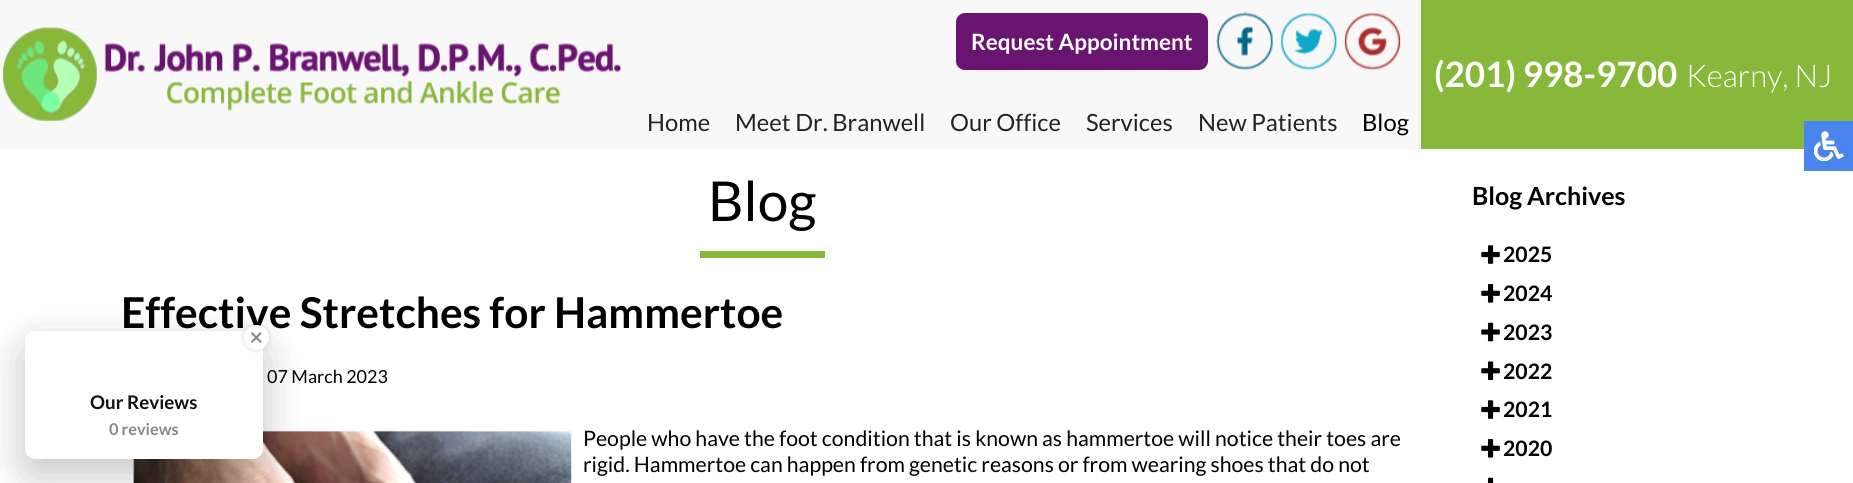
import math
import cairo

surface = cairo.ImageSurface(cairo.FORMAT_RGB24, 1853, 483)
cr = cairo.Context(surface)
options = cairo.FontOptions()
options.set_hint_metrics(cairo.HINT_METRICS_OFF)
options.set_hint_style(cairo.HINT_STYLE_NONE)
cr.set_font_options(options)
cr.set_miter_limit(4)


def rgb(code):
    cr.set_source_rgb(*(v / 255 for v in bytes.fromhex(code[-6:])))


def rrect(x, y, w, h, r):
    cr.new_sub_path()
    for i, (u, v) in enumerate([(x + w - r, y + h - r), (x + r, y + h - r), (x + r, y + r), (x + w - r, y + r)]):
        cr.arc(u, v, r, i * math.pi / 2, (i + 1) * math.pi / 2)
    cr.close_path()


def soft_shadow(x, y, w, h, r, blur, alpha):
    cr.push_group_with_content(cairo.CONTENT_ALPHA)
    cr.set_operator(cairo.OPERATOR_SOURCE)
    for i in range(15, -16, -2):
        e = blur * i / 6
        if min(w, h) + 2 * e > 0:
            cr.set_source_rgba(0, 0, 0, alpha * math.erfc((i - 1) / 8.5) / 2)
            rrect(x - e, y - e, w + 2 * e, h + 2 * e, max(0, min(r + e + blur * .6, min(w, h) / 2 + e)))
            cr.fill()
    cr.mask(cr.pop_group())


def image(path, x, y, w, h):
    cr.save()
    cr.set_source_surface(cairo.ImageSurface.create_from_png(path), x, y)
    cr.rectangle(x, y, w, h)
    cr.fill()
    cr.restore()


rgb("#ffffff")
cr.paint()
rgb("#f8f8f8")
cr.rectangle(0, 0, 1421, 149)
cr.fill()
image("img/1.png", 3, 27, 619, 94)
rgb("#6a1471")
rrect(957.5, 14.5, 249, 54, 7.5)
cr.fill_preserve()
cr.set_line_width(3)
cr.stroke()
image("img/2.png", 1216, 12, 57, 58)
image("img/3.png", 1280, 13, 57, 57)
image("img/4.png", 1343, 13, 58, 57)
rgb("#87b839")
cr.rectangle(1421, 0, 432, 149)
cr.fill()
rgb("#4885ed")
cr.rectangle(1804, 121, 49, 50)
cr.fill()
image("img/5.png", 1814, 131, 30, 30)
rgb("#87b839")
cr.rectangle(700, 251, 125, 7)
cr.fill()
image("img/6.png", 133, 430, 439, 53)
image("img/7.png", 1481, 245, 19, 19)
image("img/8.png", 1481, 284, 19, 19)
image("img/9.png", 1481, 322, 19, 20)
image("img/10.png", 1481, 361, 19, 20)
image("img/7.png", 1481, 400, 19, 19)
image("img/8.png", 1481, 439, 19, 19)
image("img/11.png", 1487, 477, 7, 6)
rgb("#000000")
soft_shadow(25, 344, 238, 127, 10, 19, 0.15)
soft_shadow(25, 350, 238, 128, 10, 25, 0.1)
rgb("#ffffff")
rrect(25, 331, 238, 128, 10)
cr.fill()
rgb("#000000")
soft_shadow(244, 325, 25, 25, 12.5, 2.5, 0.15)
cr.select_font_face("Lato", cairo.FONT_SLANT_NORMAL, cairo.FONT_WEIGHT_BOLD)
cr.set_font_size(22.5)
rgb("#ffffff")
cr.move_to(971, 50)
cr.show_text("Request Appointment")
cr.select_font_face("Lato")
cr.set_font_size(23.75)
rgb("#232323")
for x, y, s in [
    (647, 131, "Home"),
    (735, 131, "Meet Dr. Branwell"),
    (950, 131, "Our Office"),
    (1086, 131, "Services"),
    (1198, 131, "New Patients"),
]:
    cr.move_to(x, y)
    cr.show_text(s)
rgb("#000000")
cr.move_to(1362, 131)
cr.show_text("Blog")
cr.select_font_face("Lato", cairo.FONT_SLANT_NORMAL, cairo.FONT_WEIGHT_BOLD)
cr.set_font_size(35)
rgb("#ffffff")
cr.move_to(1434, 87)
cr.show_text("(201) 998-9700")
cr.select_font_face("Lato Light")
cr.set_font_size(31.25)
cr.move_to(1686, 87)
cr.show_text("Kearny, NJ")
cr.select_font_face("Lato")
cr.set_font_size(55)
rgb("#000000")
cr.move_to(708, 221)
cr.show_text("Blog")
cr.select_font_face("Lato", cairo.FONT_SLANT_NORMAL, cairo.FONT_WEIGHT_BOLD)
cr.set_font_size(42.5)
cr.move_to(121, 328)
cr.show_text("Effective Stretches for Hammertoe")
cr.select_font_face("Lato")
cr.set_font_size(18)
cr.move_to(267, 383)
cr.show_text("07 March 2023")
cr.set_font_size(21.25)
cr.move_to(583, 446)
cr.show_text("People who have the foot condition that is known as hammertoe will notice their toes are")
cr.move_to(583, 472)
cr.show_text("rigid. Hammertoe can happen from genetic reasons or from wearing shoes that do not")
cr.select_font_face("Lato", cairo.FONT_SLANT_NORMAL, cairo.FONT_WEIGHT_BOLD)
cr.set_font_size(25)
cr.move_to(1472, 205)
cr.show_text("Blog Archives")
cr.set_font_size(21.25)
for x, y, s in [
    (1503, 262, "2025"),
    (1503, 301, "2024"),
    (1503, 340, "2023"),
    (1503, 379, "2022"),
    (1503, 417, "2021"),
    (1503, 456, "2020"),
]:
    cr.move_to(x, y)
    cr.show_text(s)
rgb("#ffffff")
cr.new_path()
cr.arc(256.5, 337.5, 12.5, 0, 2 * math.pi)
cr.fill()
image("img/12.png", 251, 332, 11, 11)
cr.set_font_size(18.75)
rgb("#111111")
cr.move_to(90, 409)
cr.show_text("Our Reviews")
cr.set_font_size(16.25)
rgb("#888888")
cr.move_to(109, 435)
cr.show_text("0 reviews")
surface.write_to_png("page.png")
